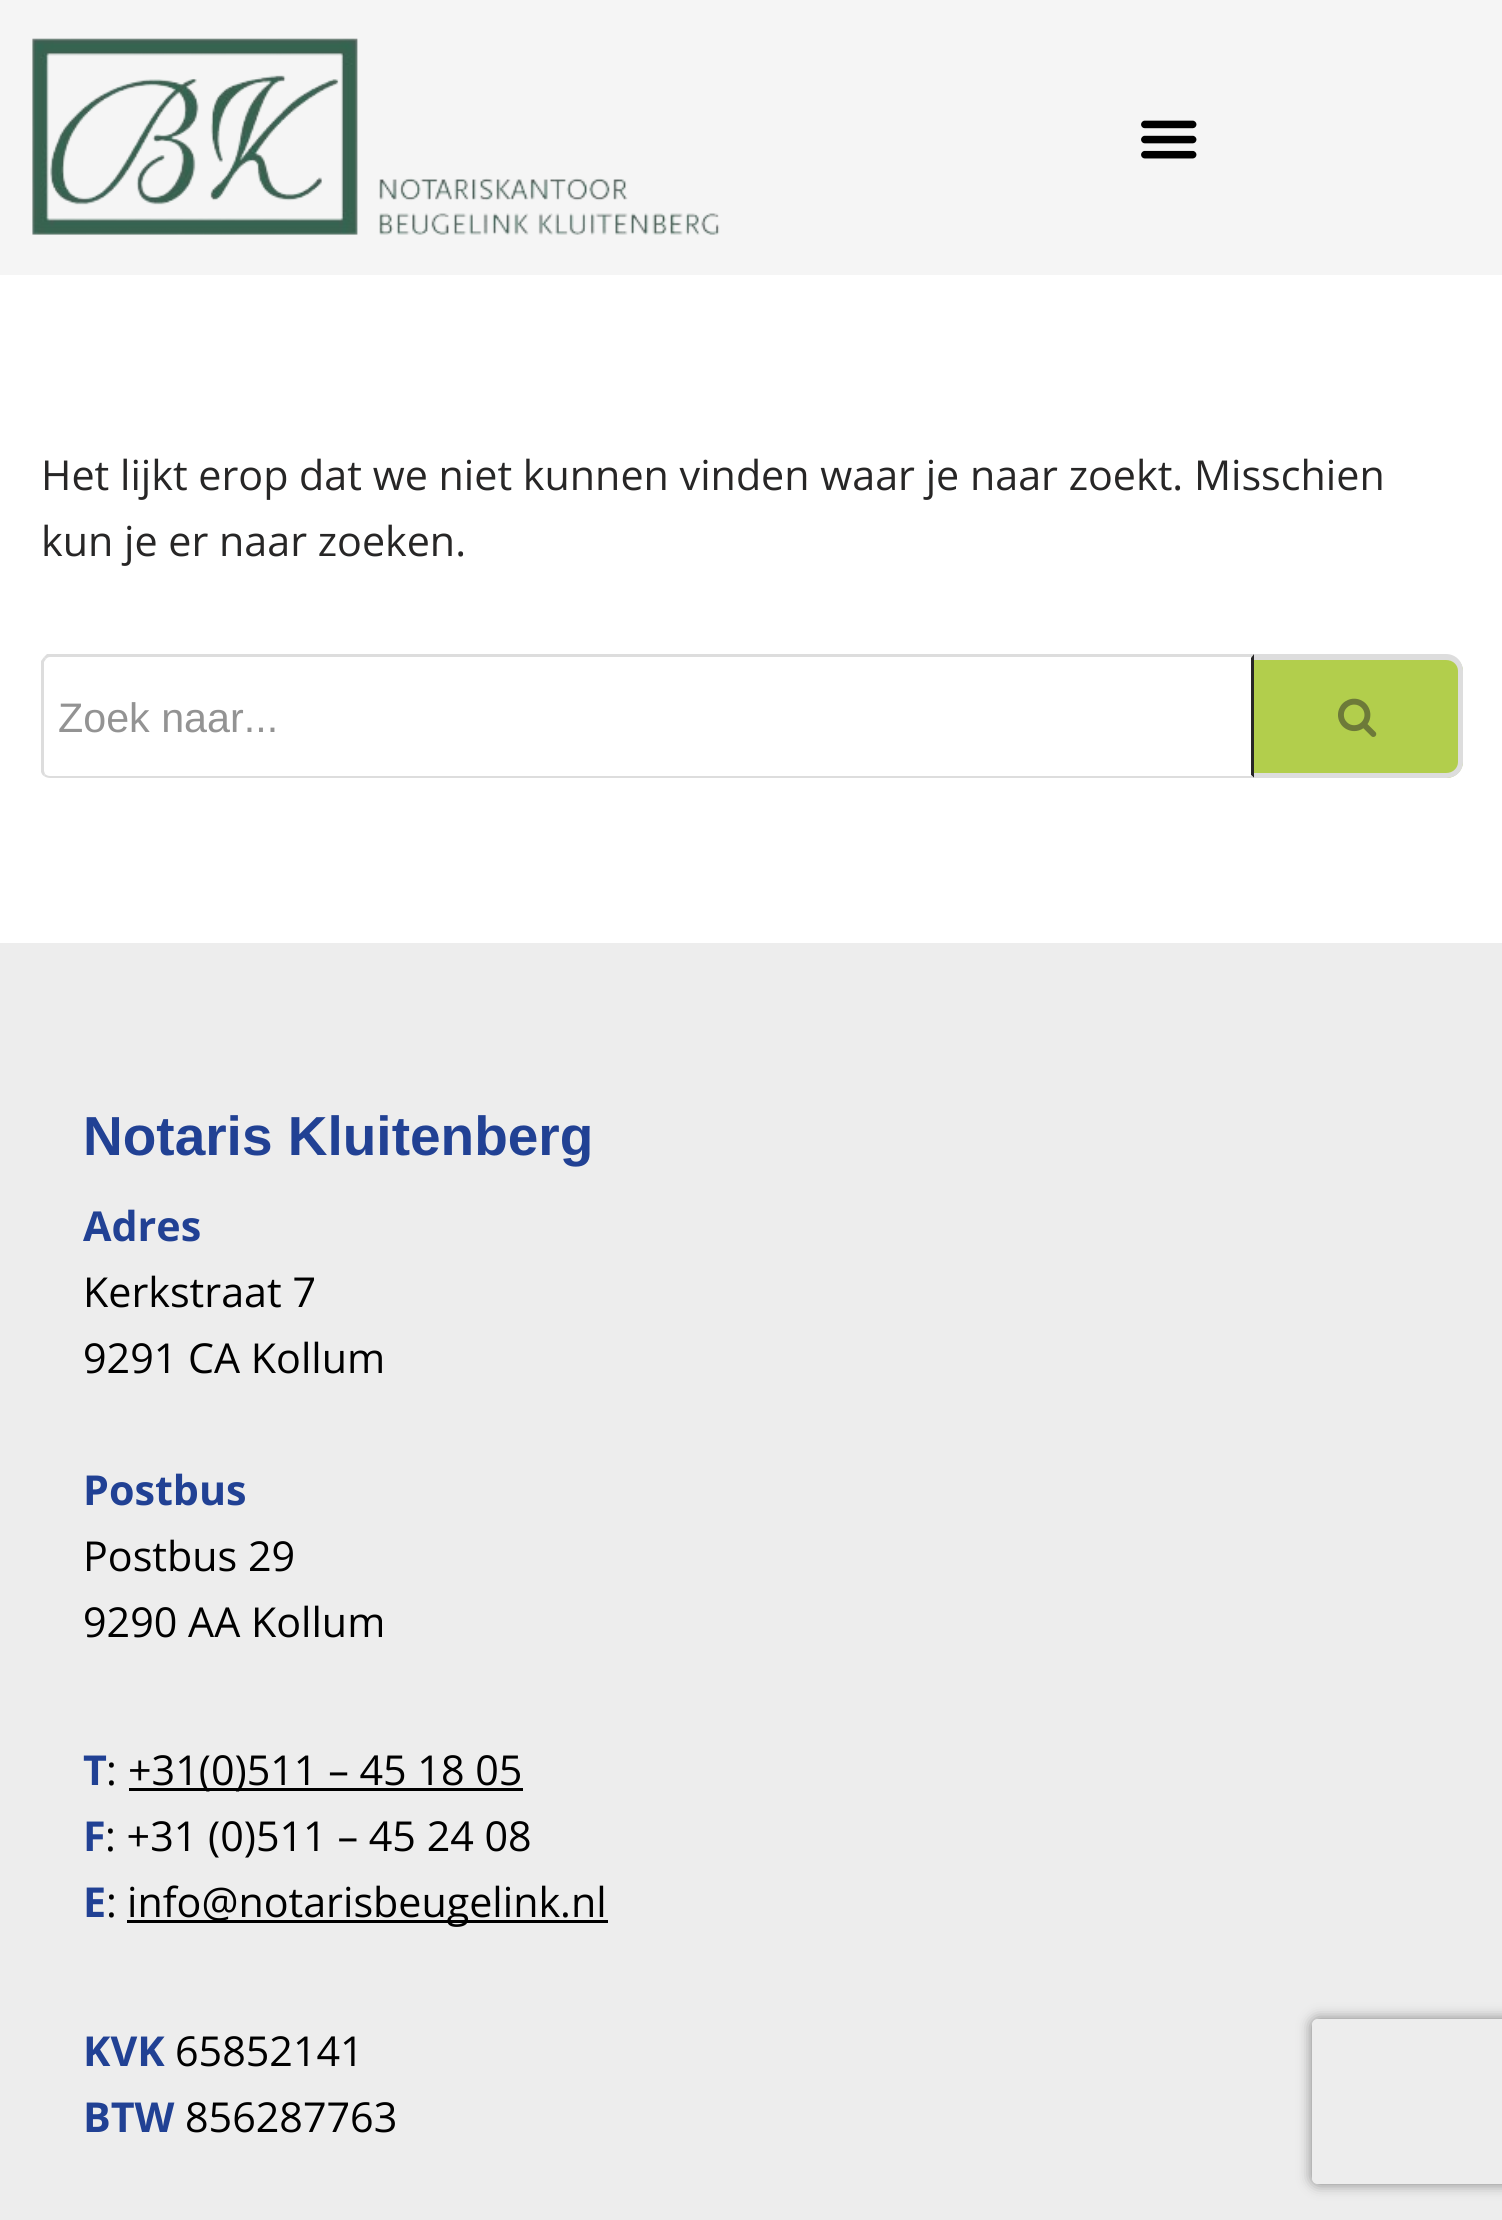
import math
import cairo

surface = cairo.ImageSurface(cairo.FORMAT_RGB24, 1502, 2220)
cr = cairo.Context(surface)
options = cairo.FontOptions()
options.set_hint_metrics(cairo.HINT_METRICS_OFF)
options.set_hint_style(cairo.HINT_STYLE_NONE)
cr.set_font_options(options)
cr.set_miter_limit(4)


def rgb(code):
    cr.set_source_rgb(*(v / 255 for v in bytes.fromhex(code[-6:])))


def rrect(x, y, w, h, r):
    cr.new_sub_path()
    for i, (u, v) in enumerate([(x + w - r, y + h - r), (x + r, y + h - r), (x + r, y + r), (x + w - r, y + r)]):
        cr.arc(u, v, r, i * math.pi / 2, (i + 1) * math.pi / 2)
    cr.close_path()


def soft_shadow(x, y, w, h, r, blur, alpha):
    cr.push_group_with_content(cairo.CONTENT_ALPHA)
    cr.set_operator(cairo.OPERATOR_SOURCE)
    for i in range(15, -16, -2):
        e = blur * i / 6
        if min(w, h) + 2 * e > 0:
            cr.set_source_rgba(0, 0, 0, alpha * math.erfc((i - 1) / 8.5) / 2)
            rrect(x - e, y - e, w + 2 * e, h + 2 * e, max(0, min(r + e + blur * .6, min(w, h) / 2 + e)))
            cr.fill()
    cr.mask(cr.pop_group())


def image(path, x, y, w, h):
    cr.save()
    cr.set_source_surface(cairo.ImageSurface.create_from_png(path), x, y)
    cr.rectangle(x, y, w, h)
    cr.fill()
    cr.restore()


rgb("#ffffff")
cr.paint()
rgb("#f5f5f5")
cr.rectangle(0, 0, 1502, 275)
cr.fill()
image("img/1.png", 32, 38, 688, 197)
image("img/2.png", 1141, 120, 56, 39)
rgb("#dddddd")
cr.new_path()
cr.move_to(50, 657)
cr.curve_to(48, 657, 47, 658, 46, 659)
cr.line_to(44, 657)
cr.line_to(47, 654)
cr.line_to(1254, 654)
cr.line_to(1251, 658)
cr.line_to(1251, 657)
cr.close_path()
cr.fill()
rgb("#272626")
cr.new_path()
cr.move_to(1254, 654)
cr.line_to(1251, 658)
cr.line_to(1251, 775)
cr.line_to(1254, 778)
cr.close_path()
cr.fill()
rgb("#dddddd")
cr.new_path()
cr.move_to(1254, 778)
cr.line_to(50, 778)
cr.curve_to(48, 778, 45, 777, 44, 776)
cr.line_to(45, 774)
cr.curve_to(46, 775, 48, 776, 50, 776)
cr.line_to(1251, 776)
cr.line_to(1251, 775)
cr.close_path()
cr.fill()
cr.new_path()
cr.move_to(41, 661)
cr.line_to(44, 657)
cr.line_to(46, 659)
cr.line_to(44, 662)
cr.line_to(44, 771)
cr.line_to(45, 774)
cr.line_to(44, 776)
cr.curve_to(42, 775, 42, 774, 41, 772)
cr.close_path()
cr.fill()
rgb("#b2ce4c")
cr.new_path()
cr.move_to(1254, 655)
cr.line_to(1446, 655)
cr.curve_to(1455.5, 655, 1463, 662.5, 1463, 672)
cr.line_to(1463, 761)
cr.curve_to(1463, 770.5, 1455.5, 778, 1446, 778)
cr.line_to(1254, 778)
cr.close_path()
cr.fill()
rgb("#dddddd")
cr.set_fill_rule(cairo.FILL_RULE_EVEN_ODD)
cr.new_path()
cr.move_to(1254, 654)
cr.line_to(1446, 654)
cr.curve_to(1456, 654, 1463, 662, 1463, 671)
cr.line_to(1463, 762)
cr.curve_to(1463, 771, 1456, 778, 1446, 778)
cr.line_to(1254, 778)
cr.close_path()
cr.move_to(1254, 660)
cr.line_to(1446, 660)
cr.curve_to(1453, 660, 1458, 665, 1458, 671)
cr.line_to(1458, 762)
cr.curve_to(1458, 768, 1453, 773, 1446, 773)
cr.line_to(1254, 773)
cr.close_path()
cr.fill()
image("img/3.png", 1338, 698, 39, 39)
for x, y, w, h, color in [
    (0, 943, 1502, 1277, "#ededed"),
    (129, 1788, 394, 3, "#000000"),
    (127, 1920, 481, 3, "#000000"),
]:
    rgb(color)
    cr.rectangle(x, y, w, h)
    cr.fill()
cr.save()
cr.new_path()
cr.move_to(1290, 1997)
cr.line_to(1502, 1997)
cr.line_to(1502, 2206)
cr.line_to(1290, 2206)
cr.close_path()
cr.move_to(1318, 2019)
cr.line_to(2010, 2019)
cr.curve_to(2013.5, 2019, 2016, 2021.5, 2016, 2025)
cr.line_to(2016, 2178)
cr.curve_to(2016, 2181.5, 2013.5, 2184, 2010, 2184)
cr.line_to(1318, 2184)
cr.curve_to(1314.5, 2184, 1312, 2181.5, 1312, 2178)
cr.line_to(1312, 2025)
cr.curve_to(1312, 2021.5, 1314.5, 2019, 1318, 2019)
cr.close_path()
cr.clip()
rgb("#808080")
soft_shadow(1312, 2019, 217, 165, 6, 7, 1)
cr.restore()
cr.select_font_face("Open Sans")
cr.set_font_size(41.25)
rgb("#272626")
cr.move_to(41, 490)
cr.show_text("Het lijkt erop dat we niet kunnen vinden waar je naar zoekt. Misschien")
cr.move_to(41, 556)
cr.show_text("kun je er naar zoeken.")
cr.select_font_face("Liberation Sans")
rgb("#939393")
cr.move_to(58, 732)
cr.show_text("Zoek naar...")
cr.select_font_face("Liberation Sans", cairo.FONT_SLANT_NORMAL, cairo.FONT_WEIGHT_BOLD)
cr.set_font_size(55)
rgb("#214194")
cr.move_to(83, 1155)
cr.show_text("Notaris Kluitenberg")
cr.select_font_face("Open Sans", cairo.FONT_SLANT_NORMAL, cairo.FONT_WEIGHT_BOLD)
cr.set_font_size(41.25)
cr.move_to(83, 1241)
cr.show_text("Adres")
cr.select_font_face("Open Sans")
rgb("#000000")
cr.move_to(83, 1307)
cr.show_text("Kerkstraat 7")
cr.move_to(83, 1373)
cr.show_text("9291 CA Kollum")
cr.select_font_face("Open Sans", cairo.FONT_SLANT_NORMAL, cairo.FONT_WEIGHT_BOLD)
rgb("#214194")
cr.move_to(83, 1505)
cr.show_text("Postbus")
cr.select_font_face("Open Sans")
rgb("#000000")
cr.move_to(83, 1571)
cr.show_text("Postbus 29")
cr.move_to(83, 1637)
cr.show_text("9290 AA Kollum")
cr.select_font_face("Open Sans", cairo.FONT_SLANT_NORMAL, cairo.FONT_WEIGHT_BOLD)
rgb("#214194")
cr.move_to(83, 1785)
cr.show_text("T")
cr.select_font_face("Open Sans")
rgb("#000000")
cr.move_to(106, 1785)
cr.show_text(":")
cr.move_to(128, 1785)
cr.show_text("+31(0)511 – 45 18 05")
cr.select_font_face("Open Sans", cairo.FONT_SLANT_NORMAL, cairo.FONT_WEIGHT_BOLD)
rgb("#214194")
cr.move_to(83, 1851)
cr.show_text("F")
cr.select_font_face("Open Sans")
rgb("#000000")
cr.move_to(105, 1851)
cr.show_text(": +31 (0)511 – 45 24 08")
cr.select_font_face("Open Sans", cairo.FONT_SLANT_NORMAL, cairo.FONT_WEIGHT_BOLD)
rgb("#214194")
cr.move_to(83, 1917)
cr.show_text("E")
cr.select_font_face("Open Sans")
rgb("#000000")
cr.move_to(106, 1917)
cr.show_text(":")
cr.move_to(127, 1917)
cr.show_text("info@notarisbeugelink.nl")
cr.select_font_face("Open Sans", cairo.FONT_SLANT_NORMAL, cairo.FONT_WEIGHT_BOLD)
rgb("#214194")
cr.move_to(83, 2066)
cr.show_text("KVK")
cr.select_font_face("Open Sans")
rgb("#000000")
cr.move_to(175, 2066)
cr.show_text("65852141")
cr.select_font_face("Open Sans", cairo.FONT_SLANT_NORMAL, cairo.FONT_WEIGHT_BOLD)
rgb("#214194")
cr.move_to(83, 2132)
cr.show_text("BTW")
cr.select_font_face("Open Sans")
rgb("#000000")
cr.move_to(185, 2132)
cr.show_text("856287763")
surface.write_to_png("page.png")
